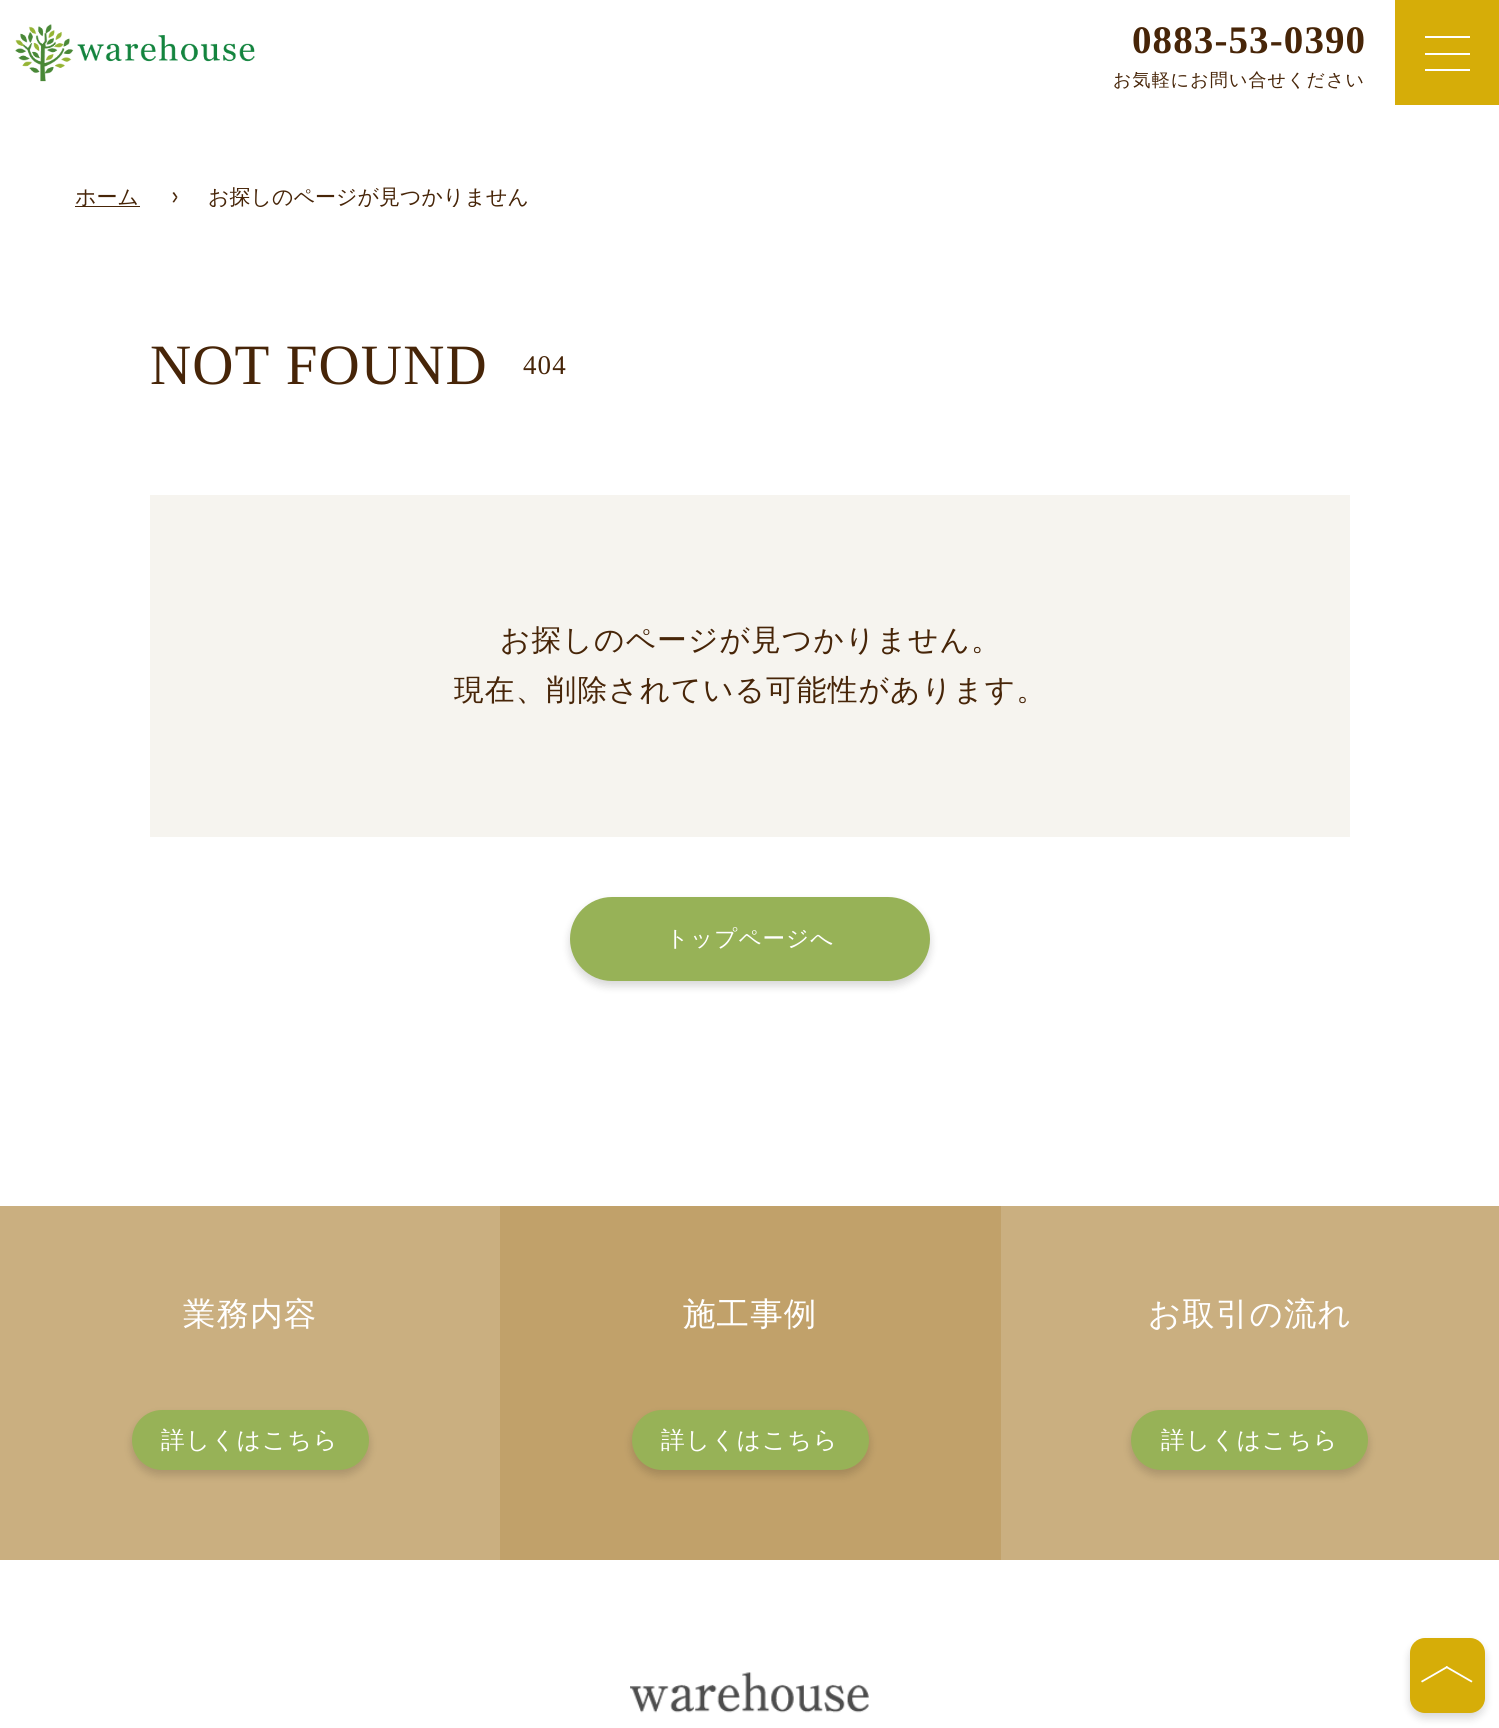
import math
import cairo

surface = cairo.ImageSurface(cairo.FORMAT_RGB24, 1499, 1728)
cr = cairo.Context(surface)
options = cairo.FontOptions()
options.set_hint_metrics(cairo.HINT_METRICS_OFF)
options.set_hint_style(cairo.HINT_STYLE_NONE)
cr.set_font_options(options)
cr.set_miter_limit(4)


def rgb(code):
    cr.set_source_rgb(*(v / 255 for v in bytes.fromhex(code[-6:])))


def tracked(x, y, s, letter, word):
    cr.move_to(x, y)
    for ch in s:
        cr.show_text(ch)
        cr.rel_move_to(letter + word * (ch == ' '), 0)


def rrect(x, y, w, h, r):
    cr.new_sub_path()
    for i, (u, v) in enumerate([(x + w - r, y + h - r), (x + r, y + h - r), (x + r, y + r), (x + w - r, y + r)]):
        cr.arc(u, v, r, i * math.pi / 2, (i + 1) * math.pi / 2)
    cr.close_path()


def soft_shadow(x, y, w, h, r, blur, alpha):
    cr.push_group_with_content(cairo.CONTENT_ALPHA)
    cr.set_operator(cairo.OPERATOR_SOURCE)
    for i in range(15, -16, -2):
        e = blur * i / 6
        if min(w, h) + 2 * e > 0:
            cr.set_source_rgba(0, 0, 0, alpha * math.erfc((i - 1) / 8.5) / 2)
            rrect(x - e, y - e, w + 2 * e, h + 2 * e, max(0, min(r + e + blur * .6, min(w, h) / 2 + e)))
            cr.fill()
    cr.mask(cr.pop_group())


def image(path, x, y, w, h):
    cr.save()
    cr.set_source_surface(cairo.ImageSurface.create_from_png(path), x, y)
    cr.rectangle(x, y, w, h)
    cr.fill()
    cr.restore()


rgb("#ffffff")
cr.paint()
image("img/1.png", 15, 24, 240, 58)
for x, y, w, h, color in [
    (1395, 0, 104, 105, "#d6ad08"),
    (1425, 36, 45, 2, "#ffffff"),
    (1425, 53, 45, 2, "#ffffff"),
    (1425, 69, 45, 2, "#ffffff"),
    (75, 206, 65, 1, "#472508"),
]:
    rgb(color)
    cr.rectangle(x, y, w, h)
    cr.fill()
cr.new_path()
cr.move_to(174, 192)
cr.line_to(177.5, 197)
cr.line_to(176, 197.5)
cr.line_to(172.5, 193)
cr.close_path()
cr.fill()
cr.new_path()
cr.move_to(172.5, 202)
cr.line_to(176, 197)
cr.line_to(177.5, 197.5)
cr.line_to(174, 202.5)
cr.close_path()
cr.fill()
rgb("#f6f4ef")
cr.rectangle(150, 495, 1200, 342)
cr.fill()
rgb("#000000")
soft_shadow(570, 902, 360, 84, 42, 4.5, 0.16)
rgb("#97b257")
rrect(570, 897, 360, 84, 42)
cr.fill()
rgb("#caaf80")
cr.rectangle(0, 1206, 500, 354)
cr.fill()
rgb("#000000")
soft_shadow(132, 1415, 237, 60, 30, 4.5, 0.16)
rgb("#97b257")
rrect(132, 1410, 237, 60, 30)
cr.fill()
rgb("#c1a16a")
cr.rectangle(500, 1206, 501, 354)
cr.fill()
rgb("#000000")
soft_shadow(632, 1415, 237, 60, 30, 4.5, 0.16)
rgb("#97b257")
rrect(632, 1410, 237, 60, 30)
cr.fill()
rgb("#caaf80")
cr.rectangle(1001, 1206, 498, 354)
cr.fill()
rgb("#000000")
soft_shadow(1131, 1415, 237, 60, 30, 4.5, 0.16)
rgb("#97b257")
rrect(1131, 1410, 237, 60, 30)
cr.fill()
image("img/2.png", 630, 1672, 239, 41)
rgb("#000000")
soft_shadow(1410, 1643, 75, 75, 15, 4.5, 0.16)
rgb("#d6ad08")
rrect(1410, 1638, 75, 75, 15)
cr.fill()
rgb("#ffffff")
cr.new_path()
cr.move_to(1421, 1681)
cr.line_to(1447, 1666)
cr.line_to(1448, 1667.5)
cr.line_to(1422, 1682.5)
cr.close_path()
cr.fill()
cr.new_path()
cr.move_to(1471.5, 1682.5)
cr.line_to(1445.5, 1667.5)
cr.line_to(1446.5, 1666)
cr.line_to(1472.5, 1681)
cr.close_path()
cr.fill()
cr.select_font_face("Liberation Serif", cairo.FONT_SLANT_NORMAL, cairo.FONT_WEIGHT_BOLD)
cr.set_font_size(39)
rgb("#472508")
tracked(1132, 53, "0883-53-0390", 1.1, 0)
cr.select_font_face("WenQuanYi Zen Hei Medium")
cr.set_font_size(18)
tracked(1113, 86, "お気軽にお問い合せください", 1.1, 0)
cr.set_font_size(21)
cr.move_to(75, 204)
cr.show_text("ホーム")
cr.save()
cr.rectangle(75, 186, 1350, 21)
cr.clip()
cr.move_to(208, 204)
cr.show_text("お探しのページが見つかりません")
cr.restore()
cr.select_font_face("Liberation Serif")
cr.set_font_size(57)
tracked(150, 384, "NOT FOUND", 1.1, 0)
cr.set_font_size(27)
tracked(523, 374, "404", 1.1, 0)
cr.select_font_face("WenQuanYi Zen Hei Medium")
cr.set_font_size(29.75)
tracked(500, 650, "お探しのページが見つかりません。", 1.1, 0)
tracked(454, 700, "現在、削除されている可能性があります。", 1.1, 0)
cr.set_font_size(22.5)
rgb("#ffffff")
tracked(666, 946, "トップページへ", 1.1, 0)
cr.set_font_size(32.5)
tracked(183, 1325, "業務内容", 1.1, 0)
cr.set_font_size(23.75)
tracked(161, 1448, "詳しくはこちら", 1.1, 0)
cr.set_font_size(32.5)
tracked(683, 1325, "施工事例", 1.1, 0)
cr.set_font_size(23.75)
tracked(661, 1448, "詳しくはこちら", 1.1, 0)
cr.set_font_size(32.5)
tracked(1148, 1325, "お取引の流れ", 1.1, 0)
cr.set_font_size(23.75)
tracked(1161, 1448, "詳しくはこちら", 1.1, 0)
surface.write_to_png("page.png")
